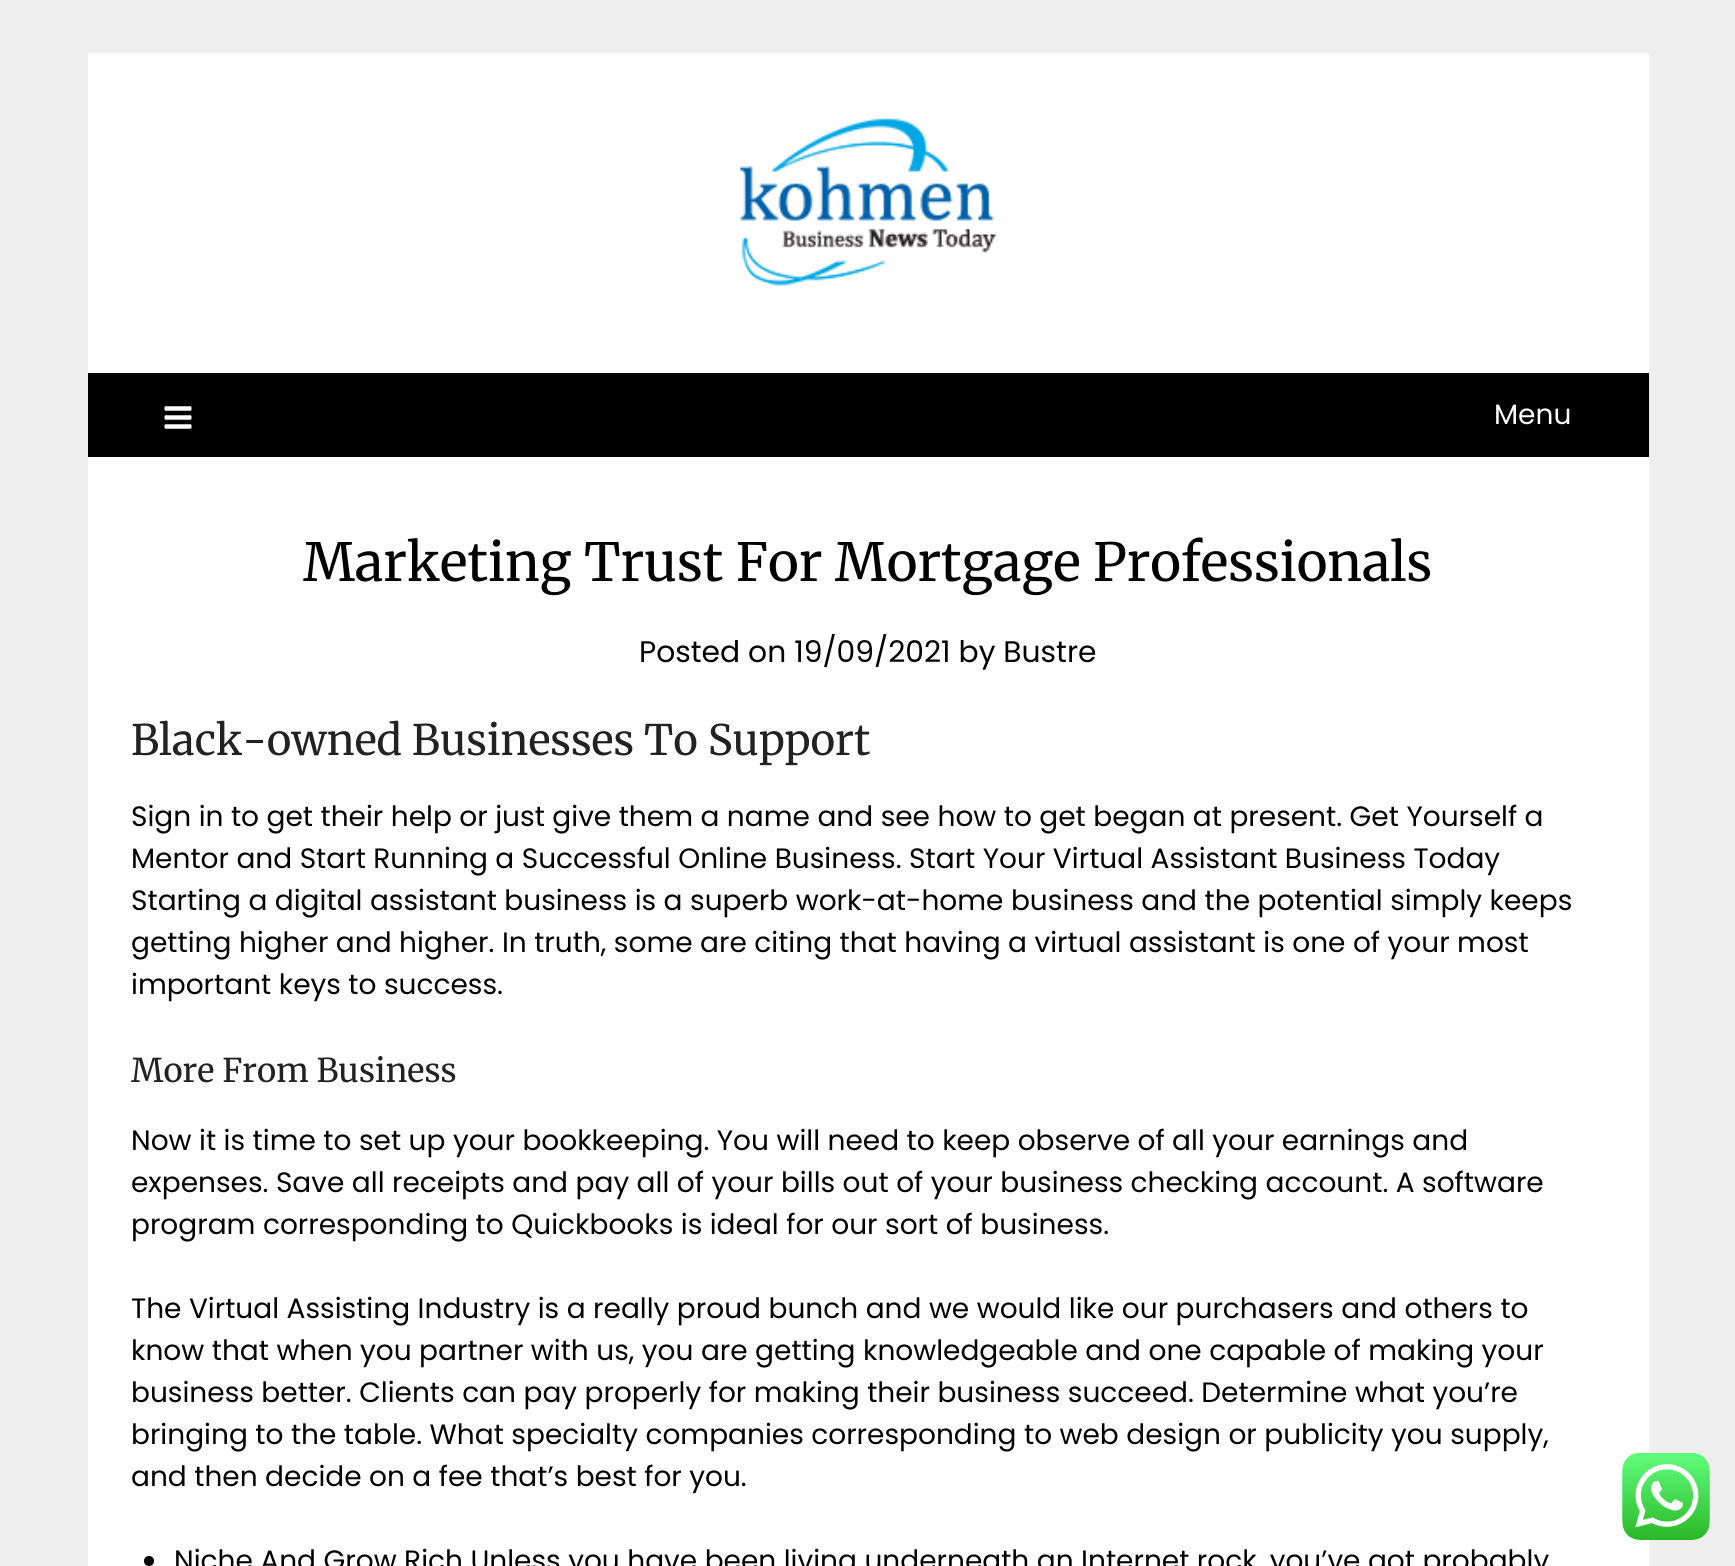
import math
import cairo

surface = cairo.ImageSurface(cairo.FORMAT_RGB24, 1735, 1566)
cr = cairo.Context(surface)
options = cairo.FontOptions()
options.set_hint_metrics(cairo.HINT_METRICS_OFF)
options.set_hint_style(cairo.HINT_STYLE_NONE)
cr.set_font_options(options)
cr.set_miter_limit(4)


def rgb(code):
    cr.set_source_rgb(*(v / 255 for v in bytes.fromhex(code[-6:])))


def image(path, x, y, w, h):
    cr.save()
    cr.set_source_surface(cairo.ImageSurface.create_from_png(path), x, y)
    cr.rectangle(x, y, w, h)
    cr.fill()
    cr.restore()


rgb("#eeeeee")
cr.paint()
rgb("#ffffff")
cr.rectangle(88, 53, 1561, 320)
cr.fill()
image("img/1.png", 739, 118, 258, 168)
rgb("#000000")
cr.rectangle(88, 373, 1561, 84)
cr.fill()
image("img/2.png", 164, 406, 28, 23)
rgb("#ffffff")
cr.rectangle(88, 457, 1561, 1109)
cr.fill()
rgb("#000000")
cr.arc(149, 1561, 5, 0, 2 * math.pi)
cr.fill()
image("img/3.png", 1622, 1453, 88, 87)
cr.select_font_face("Poppins")
cr.set_font_size(28)
rgb("#ffffff")
cr.move_to(1494, 424)
cr.show_text("Menu")
cr.select_font_face("Merriweather Light")
cr.set_font_size(52.5)
rgb("#000000")
cr.move_to(303, 581)
cr.show_text("Marketing Trust For Mortgage Professionals")
cr.select_font_face("Poppins")
cr.set_font_size(29.75)
cr.move_to(639, 662)
cr.show_text("Posted on 19/09/2021 by Bustre")
cr.select_font_face("Merriweather Light")
cr.set_font_size(42)
rgb("#222222")
cr.move_to(131, 755)
cr.show_text("Black-owned Businesses To Support")
cr.select_font_face("Poppins")
cr.set_font_size(28)
rgb("#000000")
for x, y, s in [
    (131, 826, "Sign in to get their help or just give them a name and see how to get began at present. Get Yourself a"),
    (131, 868, "Mentor and Start Running a Successful Online Business. Start Your Virtual Assistant Business Today"),
    (131, 910, "Starting a digital assistant business is a superb work-at-home business and the potential simply keeps"),
    (131, 952, "getting higher and higher. In truth, some are citing that having a virtual assistant is one of your most"),
    (131, 994, "important keys to success."),
]:
    cr.move_to(x, y)
    cr.show_text(s)
cr.select_font_face("Merriweather Light")
cr.set_font_size(32.75)
rgb("#222222")
cr.move_to(131, 1082)
cr.show_text("More From Business")
cr.select_font_face("Poppins")
cr.set_font_size(28)
rgb("#000000")
for x, y, s in [
    (131, 1150, "Now it is time to set up your bookkeeping. You will need to keep observe of all your earnings and"),
    (131, 1192, "expenses. Save all receipts and pay all of your bills out of your business checking account. A software"),
    (131, 1234, "program corresponding to Quickbooks is ideal for our sort of business."),
    (131, 1318, "The Virtual Assisting Industry is a really proud bunch and we would like our purchasers and others to"),
    (131, 1360, "know that when you partner with us, you are getting knowledgeable and one capable of making your"),
    (131, 1402, "business better. Clients can pay properly for making their business succeed. Determine what you’re"),
    (131, 1444, "bringing to the table. What specialty companies corresponding to web design or publicity you supply,"),
    (131, 1486, "and then decide on a fee that’s best for you."),
    (174, 1570, "Niche And Grow Rich Unless you have been living underneath an Internet rock, you’ve got probably"),
]:
    cr.move_to(x, y)
    cr.show_text(s)
surface.write_to_png("page.png")
